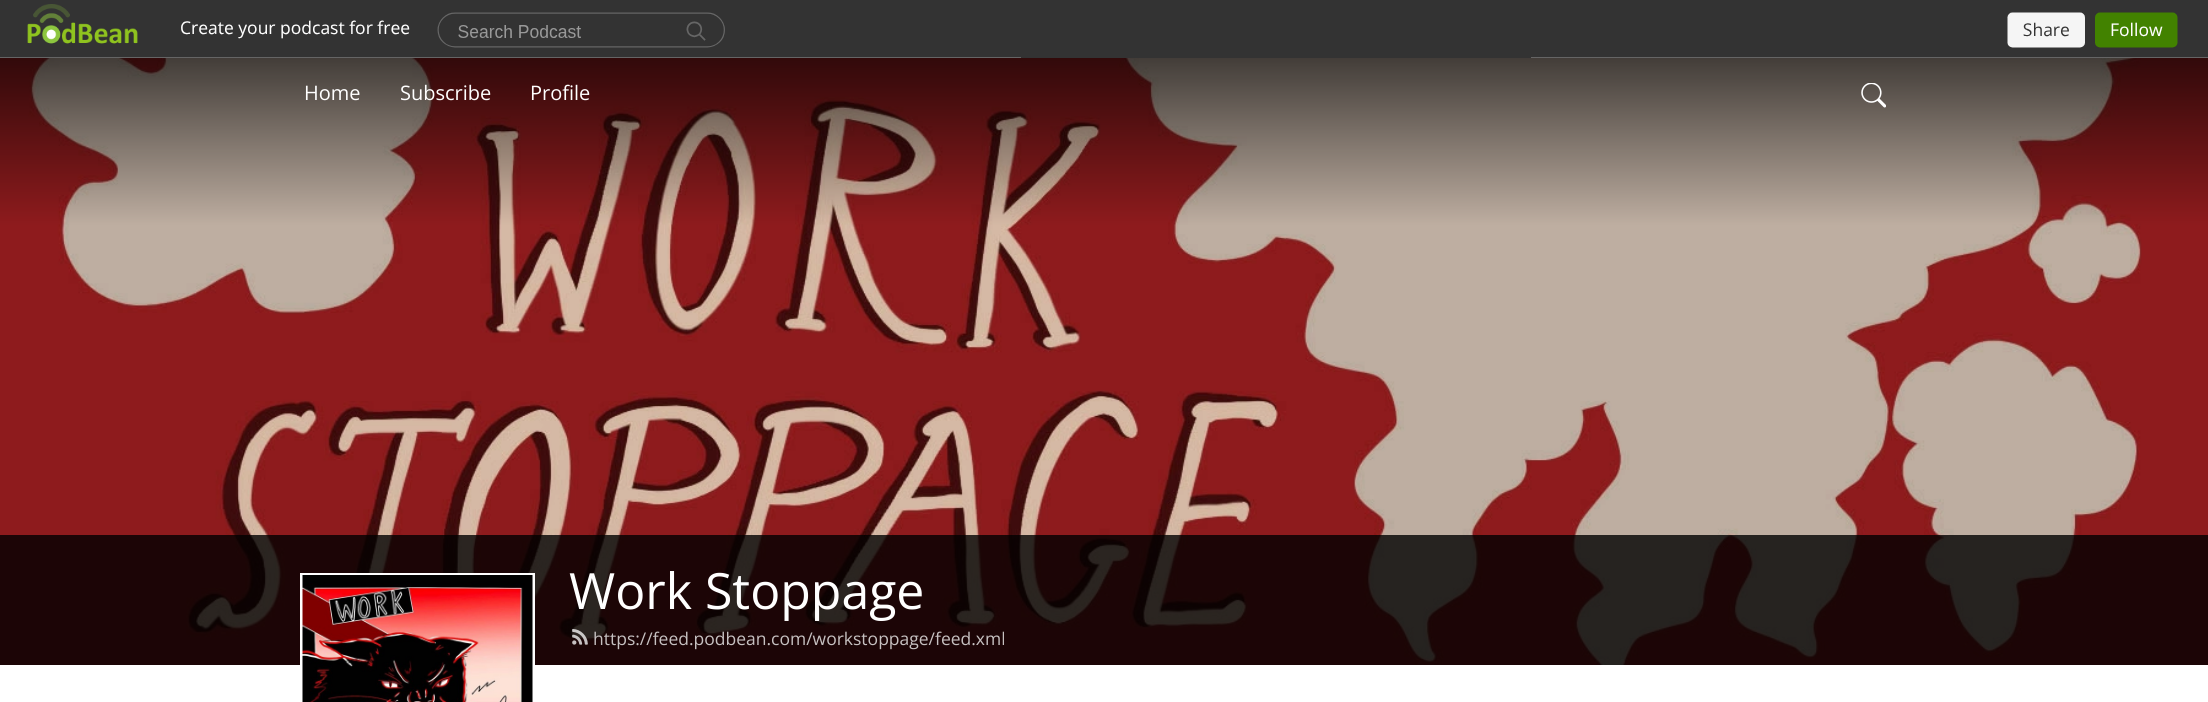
import math
import cairo

surface = cairo.ImageSurface(cairo.FORMAT_RGB24, 2208, 702)
cr = cairo.Context(surface)
options = cairo.FontOptions()
options.set_hint_metrics(cairo.HINT_METRICS_OFF)
options.set_hint_style(cairo.HINT_STYLE_NONE)
cr.set_font_options(options)
cr.set_miter_limit(4)


def rgb(code):
    cr.set_source_rgb(*(v / 255 for v in bytes.fromhex(code[-6:])))


def image(path, x, y, w, h):
    cr.save()
    cr.set_source_surface(cairo.ImageSurface.create_from_png(path), x, y)
    cr.rectangle(x, y, w, h)
    cr.fill()
    cr.restore()


rgb("#ffffff")
cr.paint()
rgb("#333333")
cr.rectangle(0, 0, 2208, 4)
cr.fill()
image("img/1.png", 0, 4, 2208, 54)
image("img/4.png", 0, 58, 2208, 607)
image("img/2.png", 1861, 83, 25, 25)
cr.set_source_rgba(0, 0, 0, 0.8)
cr.rectangle(0, 535, 2208, 130)
cr.fill()
cr.rectangle(301.5, 574.5, 232, 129)
rgb("#ffffff")
cr.set_line_width(3)
cr.stroke()
image("img/3.png", 302, 575, 231, 127)
image("img/5.png", 572, 629, 16, 16)
cr.select_font_face("Open Sans")
cr.set_font_size(20)
for x, y, s in [
    (304, 100, "Home"),
    (400, 100, "Subscribe"),
    (530, 100, "Profile"),
]:
    cr.move_to(x, y)
    cr.show_text(s)
cr.set_font_size(50)
cr.move_to(569, 609)
cr.show_text("Work Stoppage")
cr.set_font_size(17.5)
rgb("#c6c1c1")
cr.move_to(593, 645)
cr.show_text("https://feed.podbean.com/workstoppage/feed.xml")
surface.write_to_png("page.png")
